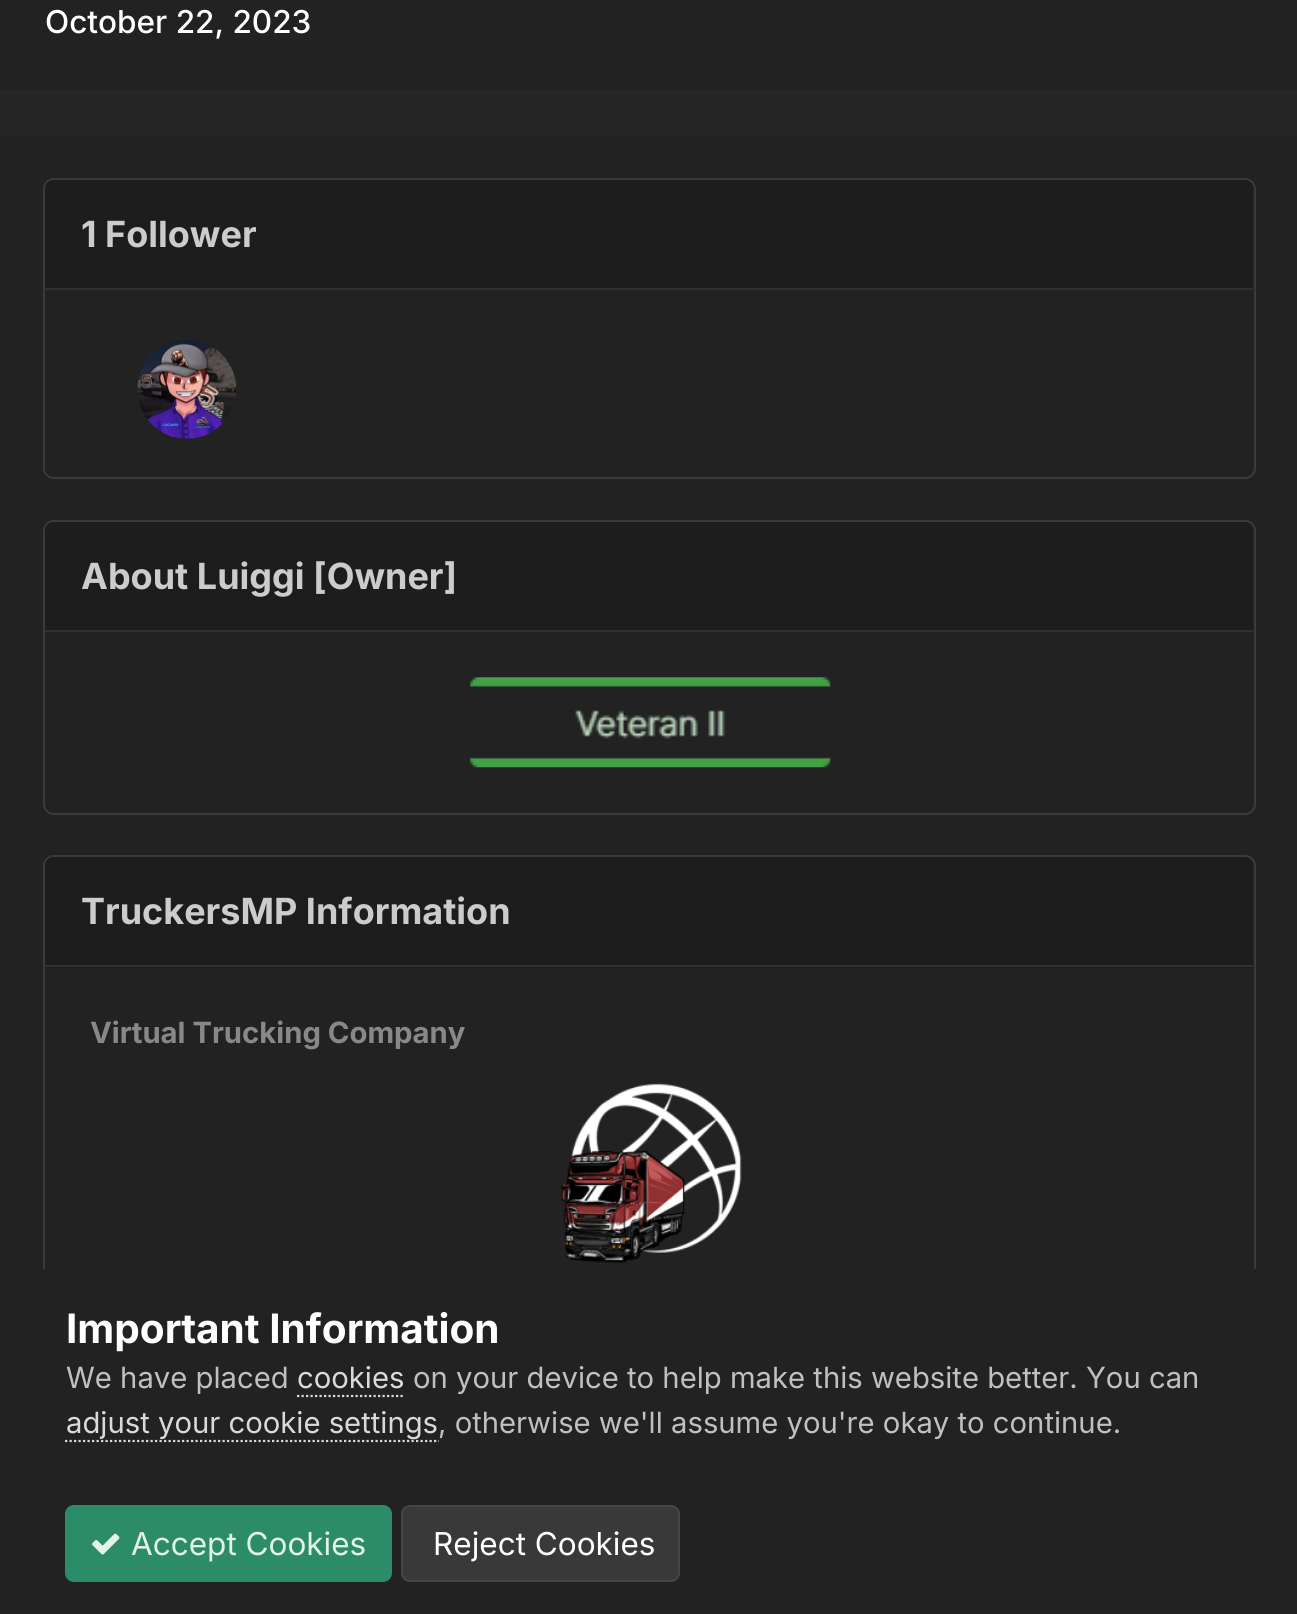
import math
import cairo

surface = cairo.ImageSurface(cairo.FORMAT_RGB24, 1297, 1614)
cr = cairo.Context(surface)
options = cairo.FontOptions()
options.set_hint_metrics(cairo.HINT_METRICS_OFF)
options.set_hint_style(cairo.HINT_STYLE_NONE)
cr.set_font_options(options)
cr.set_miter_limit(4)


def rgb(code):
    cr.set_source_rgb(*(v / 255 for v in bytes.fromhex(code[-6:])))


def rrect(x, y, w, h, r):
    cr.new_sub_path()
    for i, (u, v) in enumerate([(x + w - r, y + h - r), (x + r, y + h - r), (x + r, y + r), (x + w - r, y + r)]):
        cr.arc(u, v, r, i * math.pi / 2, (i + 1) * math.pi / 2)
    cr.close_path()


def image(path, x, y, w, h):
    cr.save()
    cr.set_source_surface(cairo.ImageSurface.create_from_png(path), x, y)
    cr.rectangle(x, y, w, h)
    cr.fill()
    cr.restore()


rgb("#252525")
cr.paint()
rgb("#222222")
cr.rectangle(0, 0, 1297, 90)
cr.fill()
cr.rectangle(0, 135, 1297, 1134)
cr.fill()
rrect(44, 179, 1211, 299, 10)
rgb("#3a3a3a")
cr.stroke()
rgb("#222222")
rrect(45, 180, 1208, 297, 9)
cr.fill()
rgb("#1d1d1d")
cr.new_path()
cr.move_to(54, 180)
cr.line_to(1244, 180)
cr.curve_to(1249, 180, 1253, 184, 1253, 189)
cr.line_to(1253, 290)
cr.line_to(45, 290)
cr.line_to(45, 189)
cr.curve_to(45, 184, 49, 180, 54, 180)
cr.close_path()
cr.fill()
rgb("#303030")
cr.rectangle(45, 288, 1208, 2)
cr.fill()
image("img/1.png", 137, 340, 99, 99)
rrect(44, 521, 1211, 293, 10)
rgb("#3a3a3a")
cr.stroke()
rgb("#222222")
rrect(45, 522, 1208, 290, 9)
cr.fill()
rgb("#1d1d1d")
cr.new_path()
cr.move_to(54, 522)
cr.line_to(1244, 522)
cr.curve_to(1249, 522, 1253, 526, 1253, 531)
cr.line_to(1253, 632)
cr.line_to(45, 632)
cr.line_to(45, 531)
cr.curve_to(45, 526, 49, 522, 54, 522)
cr.close_path()
cr.fill()
rgb("#303030")
cr.rectangle(45, 630, 1208, 2)
cr.fill()
image("img/2.png", 470, 677, 361, 91)
rrect(44, 856, 1211, 648, 10)
rgb("#3a3a3a")
cr.stroke()
rgb("#222222")
rrect(45, 857, 1208, 646, 9)
cr.fill()
rgb("#1d1d1d")
cr.new_path()
cr.move_to(54, 857)
cr.line_to(1244, 857)
cr.curve_to(1249, 857, 1253, 861, 1253, 866)
cr.line_to(1253, 968)
cr.line_to(45, 968)
cr.line_to(45, 866)
cr.curve_to(45, 861, 49, 857, 54, 857)
cr.close_path()
cr.fill()
rgb("#303030")
cr.rectangle(45, 965, 1208, 2)
cr.fill()
image("img/3.png", 560, 1083, 182, 181)
rgb("#222222")
cr.rectangle(0, 1269, 1297, 345)
cr.fill()
cr.new_path()
cr.move_to(297, 1396)
cr.line_to(405, 1396)
rgb("#dadada")
cr.set_line_width(2.2)
cr.set_dash([2.25, 2.25])
cr.stroke()
cr.new_path()
cr.move_to(65, 1441)
cr.line_to(439, 1441)
cr.stroke()
rgb("#2c8c69")
rrect(65, 1505, 327, 77, 9)
cr.fill()
image("img/4.png", 92, 1533, 28, 22)
rgb("#393939")
rrect(401, 1505, 279, 77, 9)
cr.fill()
rrect(402, 1506, 277, 75, 8)
cr.set_source_rgba(1, 1, 1, 0.07)
cr.set_line_width(2)
cr.set_dash([])
cr.stroke()
cr.select_font_face("Inter Medium")
cr.set_font_size(31.5)
rgb("#ffffff")
cr.move_to(45, 33)
cr.show_text("October 22, 2023")
cr.select_font_face("Inter", cairo.FONT_SLANT_NORMAL, cairo.FONT_WEIGHT_BOLD)
cr.set_font_size(36)
rgb("#cccccc")
for x, y, s in [
    (81, 247, "1 Follower"),
    (81, 589, "About Luiggi [Owner]"),
    (81, 924, "TruckersMP Information"),
]:
    cr.move_to(x, y)
    cr.show_text(s)
cr.set_font_size(29.25)
rgb("#888888")
cr.move_to(90, 1043)
cr.show_text("Virtual Trucking Company")
cr.set_font_size(40.5)
rgb("#ffffff")
cr.move_to(66, 1343)
cr.show_text("Important Information")
cr.select_font_face("Inter")
cr.set_font_size(29.25)
rgb("#c0c0c0")
cr.move_to(66, 1388)
cr.show_text("We have placed")
rgb("#dadada")
cr.move_to(297, 1388)
cr.show_text("cookies")
rgb("#c0c0c0")
cr.move_to(413, 1388)
cr.show_text("on your device to help make this website better. You can")
rgb("#dadada")
cr.move_to(66, 1433)
cr.show_text("adjust your cookie settings")
rgb("#c0c0c0")
cr.move_to(438, 1433)
cr.show_text(", otherwise we'll assume you're okay to continue.")
cr.set_font_size(31.5)
rgb("#e3f3ec")
cr.move_to(131, 1555)
cr.show_text("Accept Cookies")
rgb("#ffffff")
cr.move_to(433, 1555)
cr.show_text("Reject Cookies")
surface.write_to_png("page.png")
